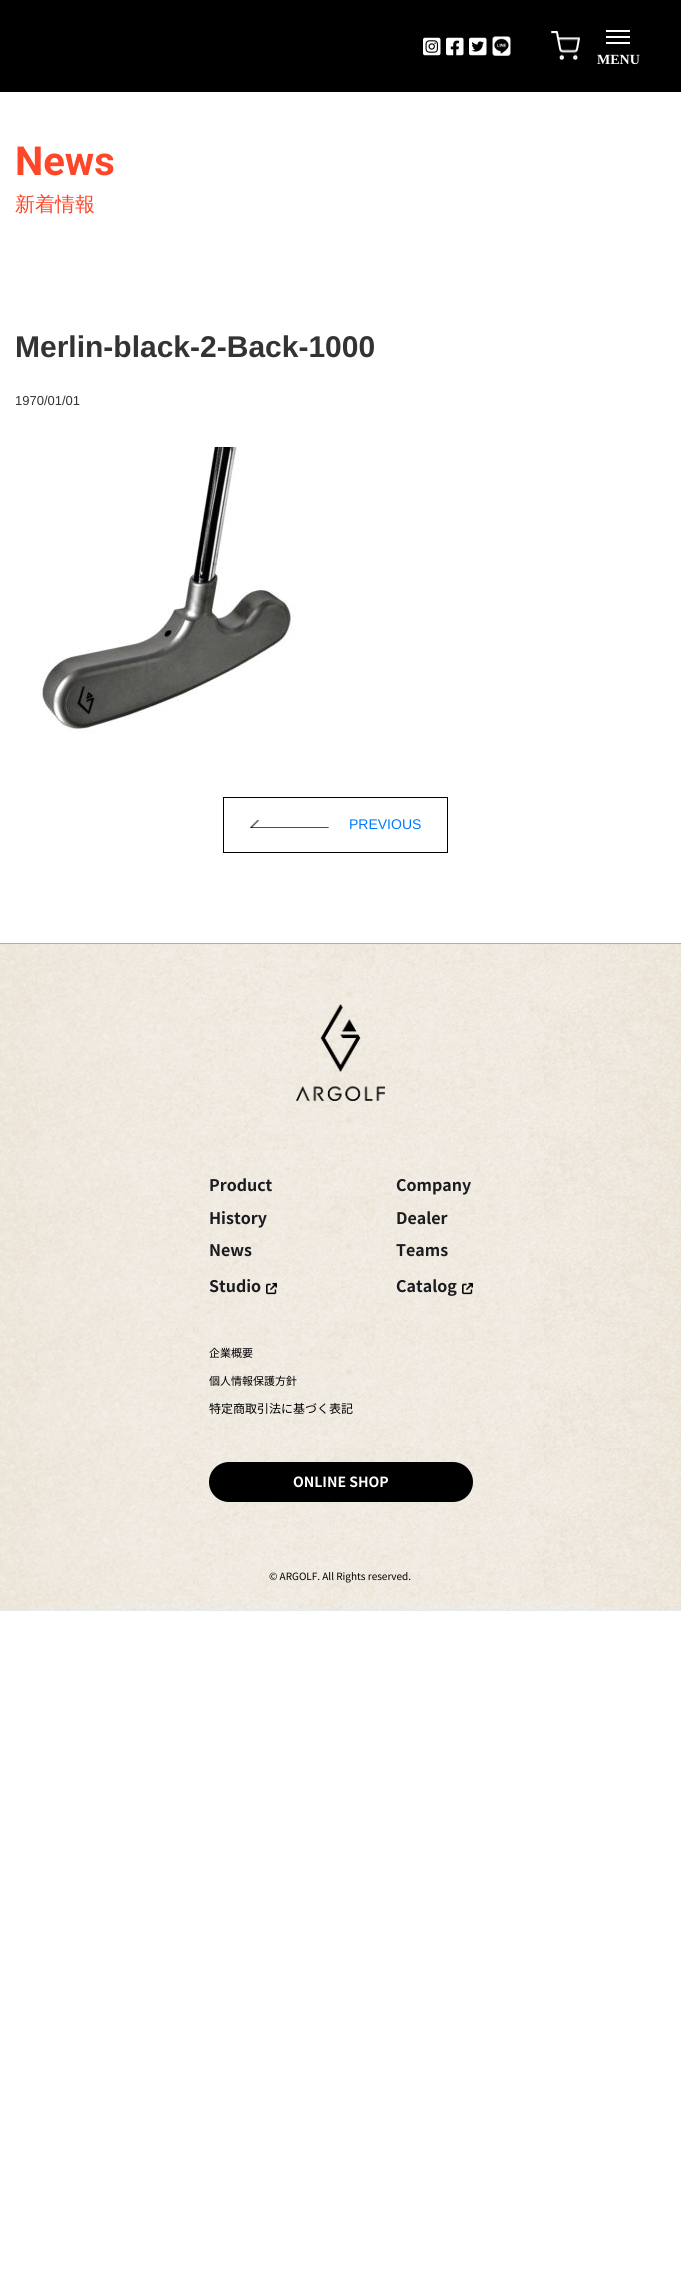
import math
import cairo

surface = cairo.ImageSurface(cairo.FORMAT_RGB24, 681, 2280)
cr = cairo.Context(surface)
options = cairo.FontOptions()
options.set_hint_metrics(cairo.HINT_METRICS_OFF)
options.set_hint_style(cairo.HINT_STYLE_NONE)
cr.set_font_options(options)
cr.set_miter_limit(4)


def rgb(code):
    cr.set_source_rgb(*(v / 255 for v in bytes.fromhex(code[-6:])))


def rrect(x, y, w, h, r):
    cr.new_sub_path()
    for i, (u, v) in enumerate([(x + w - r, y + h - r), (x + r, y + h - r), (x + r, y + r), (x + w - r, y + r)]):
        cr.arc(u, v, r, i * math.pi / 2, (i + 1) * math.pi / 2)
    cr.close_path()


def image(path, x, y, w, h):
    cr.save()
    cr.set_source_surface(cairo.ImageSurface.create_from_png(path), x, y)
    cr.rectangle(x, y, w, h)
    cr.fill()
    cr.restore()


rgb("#ffffff")
cr.paint()
rgb("#000000")
cr.rectangle(0, 0, 681, 92)
cr.fill()
image("img/1.png", 423, 37, 18, 19)
image("img/2.png", 446, 37, 18, 19)
image("img/3.png", 469, 37, 18, 19)
image("img/4.png", 492, 36, 19, 20)
image("img/5.png", 551, 31, 29, 29)
for x, y, w, h, color in [
    (606, 30, 24, 2, "#ffffff"),
    (606, 36, 24, 2, "#ffffff"),
    (606, 42, 24, 2, "#ffffff"),
]:
    rgb(color)
    cr.rectangle(x, y, w, h)
    cr.fill()
image("img/6.png", 39, 447, 256, 287)
cr.rectangle(223.5, 797.5, 224, 55)
rgb("#000000")
cr.set_line_width(1)
cr.stroke()
image("img/7.png", 249, 820, 80, 8)
rgb("#adadad")
cr.rectangle(0, 943, 681, 1)
cr.fill()
image("img/8.png", 0, 944, 681, 666)
rgb("#e4ebf3")
cr.rectangle(0, 1610, 681, 1)
cr.fill()
image("img/9.png", 296, 1004, 89, 97)
image("img/10.png", 266, 1282, 11, 13)
image("img/11.png", 462, 1282, 11, 13)
rgb("#000000")
rrect(209, 1462, 264, 40, 20)
cr.fill()
cr.select_font_face("Liberation Serif", cairo.FONT_SLANT_NORMAL, cairo.FONT_WEIGHT_BOLD)
cr.set_font_size(14)
rgb("#ffffff")
cr.move_to(597, 64)
cr.show_text("MENU")
cr.select_font_face("Roboto", cairo.FONT_SLANT_NORMAL, cairo.FONT_WEIGHT_BOLD)
cr.set_font_size(40)
rgb("#ff4628")
cr.move_to(15, 175)
cr.show_text("News")
cr.select_font_face("WenQuanYi Zen Hei Medium")
cr.set_font_size(20)
cr.move_to(15, 211)
cr.show_text("新着情報")
cr.select_font_face("Liberation Sans", cairo.FONT_SLANT_NORMAL, cairo.FONT_WEIGHT_BOLD)
cr.set_font_size(30)
rgb("#333333")
cr.move_to(15, 357)
cr.show_text("Merlin-black-2-Back-1000")
cr.select_font_face("Liberation Sans")
cr.set_font_size(13)
cr.move_to(15, 405)
cr.show_text("1970/01/01")
cr.set_font_size(14)
rgb("#007bff")
cr.move_to(349, 829)
cr.show_text("PREVIOUS")
cr.select_font_face("Noto Sans JP", cairo.FONT_SLANT_NORMAL, cairo.FONT_WEIGHT_BOLD)
cr.set_font_size(16)
rgb("#1a1b1f")
for x, y, s in [
    (209, 1191, "Product"),
    (209, 1224, "History"),
    (209, 1256, "News"),
    (209, 1292, "Studio"),
    (396, 1191, "Company"),
    (396, 1224, "Dealer"),
    (396, 1256, "Teams"),
    (396, 1292, "Catalog"),
]:
    cr.move_to(x, y)
    cr.show_text(s)
cr.select_font_face("Noto Sans JP")
cr.set_font_size(11)
rgb("#000000")
cr.move_to(209, 1357)
cr.show_text("企業概要")
cr.move_to(209, 1385)
cr.show_text("個人情報保護方針")
cr.set_font_size(12)
cr.move_to(209, 1413)
cr.show_text("特定商取引法に基づく表記")
cr.select_font_face("Noto Sans JP", cairo.FONT_SLANT_NORMAL, cairo.FONT_WEIGHT_BOLD)
cr.set_font_size(14)
rgb("#ffffff")
cr.move_to(293, 1487)
cr.show_text("ONLINE SHOP")
cr.select_font_face("Noto Sans JP")
cr.set_font_size(10)
rgb("#000000")
cr.move_to(269, 1580)
cr.show_text("© ARGOLF. All Rights reserved.")
surface.write_to_png("page.png")
